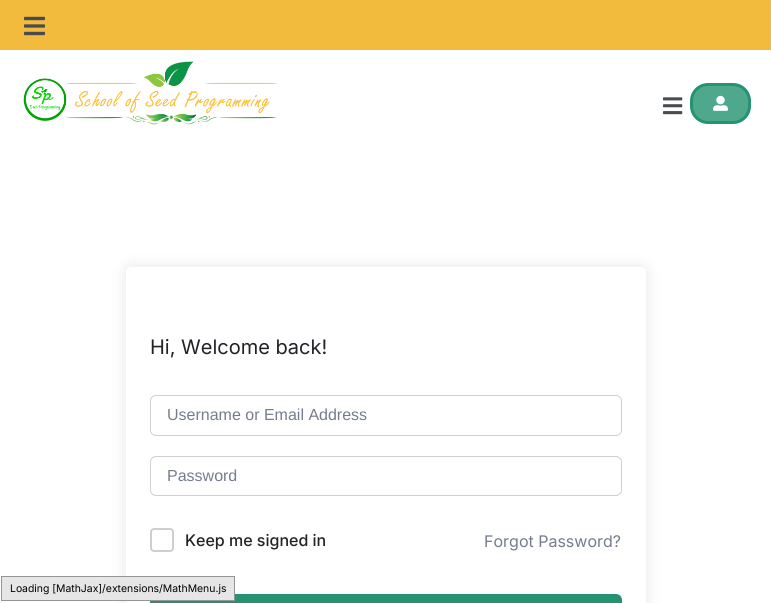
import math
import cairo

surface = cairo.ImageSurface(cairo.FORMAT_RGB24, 771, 603)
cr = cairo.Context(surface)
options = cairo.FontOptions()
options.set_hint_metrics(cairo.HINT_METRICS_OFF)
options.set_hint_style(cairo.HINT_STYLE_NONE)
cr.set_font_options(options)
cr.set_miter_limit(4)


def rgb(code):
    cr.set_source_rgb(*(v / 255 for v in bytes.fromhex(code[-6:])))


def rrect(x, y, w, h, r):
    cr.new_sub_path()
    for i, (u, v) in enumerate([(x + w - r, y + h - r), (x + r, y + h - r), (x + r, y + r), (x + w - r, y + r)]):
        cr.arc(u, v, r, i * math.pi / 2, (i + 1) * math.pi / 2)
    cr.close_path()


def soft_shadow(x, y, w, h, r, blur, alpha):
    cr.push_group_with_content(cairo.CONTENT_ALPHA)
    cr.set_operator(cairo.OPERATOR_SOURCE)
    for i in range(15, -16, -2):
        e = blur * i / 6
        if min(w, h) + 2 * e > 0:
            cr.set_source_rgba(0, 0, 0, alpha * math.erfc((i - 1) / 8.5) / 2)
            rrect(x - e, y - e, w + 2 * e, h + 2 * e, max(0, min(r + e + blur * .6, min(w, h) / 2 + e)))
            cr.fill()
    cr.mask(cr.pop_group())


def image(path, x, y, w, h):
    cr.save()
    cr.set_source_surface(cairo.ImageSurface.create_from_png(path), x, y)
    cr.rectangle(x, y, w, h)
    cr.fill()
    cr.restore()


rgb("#ffffff")
cr.paint()
rgb("#f3bb3d")
cr.rectangle(0, 0, 771, 50)
cr.fill()
image("img/1.png", 24, 16, 21, 20)
image("img/2.png", 23, 61, 254, 64)
image("img/3.png", 663, 97, 20, 18)
rgb("#4da88c")
rrect(691.5, 84.5, 58, 38, 16.5)
cr.fill_preserve()
rgb("#239371")
cr.set_line_width(3)
cr.stroke()
image("img/4.png", 713, 95, 15, 16)
cr.save()
cr.set_fill_rule(cairo.FILL_RULE_EVEN_ODD)
cr.new_path()
cr.move_to(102, 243)
cr.line_to(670, 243)
cr.line_to(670, 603)
cr.line_to(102, 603)
cr.close_path()
cr.move_to(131, 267)
cr.line_to(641, 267)
cr.curve_to(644, 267, 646, 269, 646, 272)
cr.line_to(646, 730)
cr.curve_to(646, 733, 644, 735, 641, 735)
cr.line_to(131, 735)
cr.curve_to(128, 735, 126, 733, 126, 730)
cr.line_to(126, 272)
cr.curve_to(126, 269, 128, 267, 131, 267)
cr.close_path()
cr.clip()
rgb("#000000")
soft_shadow(126, 267, 520, 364, 5, 7.5, 0.1)
cr.restore()
rrect(150.5, 395.5, 471, 40, 5.5)
rgb("#cdcfd5")
cr.set_line_width(1)
cr.stroke()
rrect(150.5, 456.5, 471, 39, 5.5)
cr.stroke()
rrect(151, 529, 22, 22, 3)
cr.set_line_width(2)
cr.stroke()
rgb("#239371")
rrect(150.5, 594.5, 471, 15, 5.5)
cr.fill_preserve()
cr.set_line_width(1)
cr.stroke()
rgb("#e6e6e6")
cr.rectangle(1.5, 576.5, 233, 24)
cr.fill_preserve()
rgb("#959595")
cr.stroke()
cr.select_font_face("Inter")
cr.set_font_size(20)
rgb("#212327")
cr.move_to(150, 354)
cr.show_text("Hi, Welcome back!")
cr.select_font_face("Liberation Sans")
cr.set_font_size(16)
rgb("#757c8e")
cr.move_to(167, 420)
cr.show_text("Username or Email Address")
cr.move_to(167, 481)
cr.show_text("Password")
cr.select_font_face("Inter Medium")
rgb("#212327")
cr.move_to(185, 546)
cr.show_text("Keep me signed in")
cr.select_font_face("Inter")
rgb("#757c8e")
cr.move_to(484, 547)
cr.show_text("Forgot Password?")
cr.set_font_size(10.4)
rgb("#000000")
cr.move_to(10, 592)
cr.show_text("Loading [MathJax]/extensions/MathMenu.js")
surface.write_to_png("page.png")
